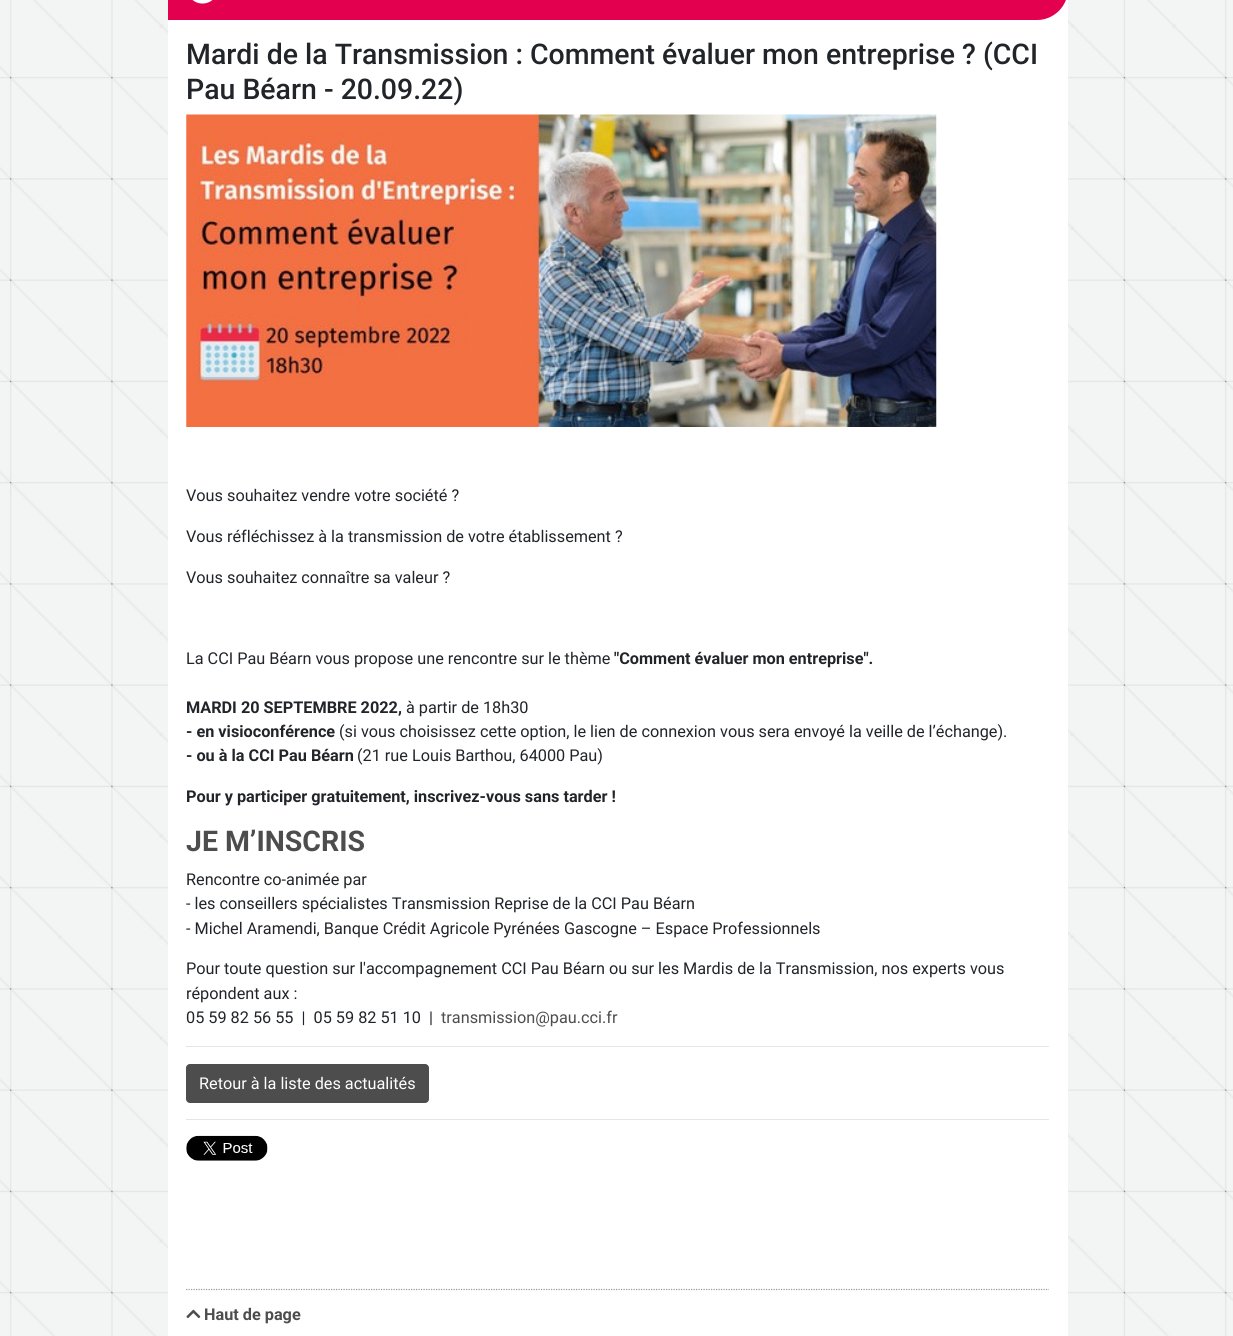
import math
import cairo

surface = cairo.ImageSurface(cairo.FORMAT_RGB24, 1233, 1336)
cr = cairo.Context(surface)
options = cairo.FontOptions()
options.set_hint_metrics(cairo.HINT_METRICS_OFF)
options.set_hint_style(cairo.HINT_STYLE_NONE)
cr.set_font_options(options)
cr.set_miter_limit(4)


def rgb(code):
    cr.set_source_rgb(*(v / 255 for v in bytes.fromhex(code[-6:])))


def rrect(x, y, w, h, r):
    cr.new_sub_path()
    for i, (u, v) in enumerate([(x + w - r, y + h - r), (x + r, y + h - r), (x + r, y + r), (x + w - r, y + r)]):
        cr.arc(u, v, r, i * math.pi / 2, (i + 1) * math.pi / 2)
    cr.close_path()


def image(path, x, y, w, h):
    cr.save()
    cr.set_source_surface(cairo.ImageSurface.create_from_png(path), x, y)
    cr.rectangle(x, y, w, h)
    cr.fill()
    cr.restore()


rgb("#ffffff")
cr.paint()
image("img/1.png", 0, 0, 1233, 1336)
rgb("#ffffff")
cr.rectangle(168, 0, 900, 1336)
cr.fill()
rgb("#e3004f")
cr.new_path()
cr.move_to(168, -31)
cr.line_to(1068, -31)
cr.line_to(1068, -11)
cr.curve_to(1068, 6, 1054, 20, 1037, 20)
cr.line_to(168, 20)
cr.close_path()
cr.fill()
image("img/2.png", 192, 0, 21, 4)
image("img/3.png", 186, 114, 751, 313)
rgb("#e6e6e6")
cr.rectangle(186, 1046, 863, 1)
cr.fill()
rgb("#4d4d4d")
rrect(186.5, 1064.5, 242, 38, 3.5)
cr.fill_preserve()
cr.set_line_width(1)
cr.stroke()
rgb("#e6e6e6")
cr.rectangle(186, 1119, 863, 1)
cr.fill()
image("img/4.png", 186, 1135, 82, 26)
cr.new_path()
cr.move_to(186, 1289.5)
cr.line_to(1049, 1289.5)
rgb("#9a9a9a")
cr.set_line_width(1.2)
cr.set_dash([1.25, 1.25])
cr.stroke()
image("img/5.png", 186, 1309, 15, 10)
cr.select_font_face("Roboto Medium")
cr.set_font_size(28.45)
rgb("#212529")
cr.move_to(186, 64)
cr.show_text("Mardi de la Transmission : Comment évaluer mon entreprise ? (CCI")
cr.move_to(186, 99)
cr.show_text("Pau Béarn - 20.09.22)")
cr.select_font_face("Roboto")
cr.set_font_size(16.25)
for x, y, s in [
    (186, 501, "Vous souhaitez vendre votre société ?"),
    (186, 542, "Vous réfléchissez à la transmission de votre établissement ?"),
    (186, 583, "Vous souhaitez connaître sa valeur ?"),
    (186, 664, "La CCI Pau Béarn vous propose une rencontre sur le thème"),
]:
    cr.move_to(x, y)
    cr.show_text(s)
cr.select_font_face("Roboto", cairo.FONT_SLANT_NORMAL, cairo.FONT_WEIGHT_BOLD)
cr.move_to(614, 664)
cr.show_text("\"Comment évaluer mon entreprise\".")
cr.move_to(186, 713)
cr.show_text("MARDI 20 SEPTEMBRE 2022,")
cr.select_font_face("Roboto")
cr.move_to(406, 713)
cr.show_text("à partir de 18h30")
cr.select_font_face("Roboto", cairo.FONT_SLANT_NORMAL, cairo.FONT_WEIGHT_BOLD)
cr.move_to(186, 737)
cr.show_text("- en visioconférence")
cr.select_font_face("Roboto")
cr.move_to(339, 737)
cr.show_text("(si vous choisissez cette option, le lien de connexion vous sera envoyé la veille de l’échange).")
cr.select_font_face("Roboto", cairo.FONT_SLANT_NORMAL, cairo.FONT_WEIGHT_BOLD)
cr.move_to(186, 761)
cr.show_text("- ou à la CCI Pau Béarn")
cr.select_font_face("Roboto")
cr.move_to(357, 761)
cr.show_text("(21 rue Louis Barthou, 64000 Pau)")
cr.select_font_face("Roboto", cairo.FONT_SLANT_NORMAL, cairo.FONT_WEIGHT_BOLD)
cr.move_to(186, 802)
cr.show_text("Pour y participer gratuitement, inscrivez-vous sans tarder !")
cr.set_font_size(28.45)
rgb("#4d4d4d")
cr.move_to(186, 851)
cr.show_text("JE M’INSCRIS")
cr.select_font_face("Roboto")
cr.set_font_size(16.25)
rgb("#212529")
for x, y, s in [
    (186, 885, "Rencontre co-animée par"),
    (186, 909, "- les conseillers spécialistes Transmission Reprise de la CCI Pau Béarn"),
    (186, 934, "- Michel Aramendi, Banque Crédit Agricole Pyrénées Gascogne – Espace Professionnels"),
    (186, 974, "Pour toute question sur l'accompagnement CCI Pau Béarn ou sur les Mardis de la Transmission, nos experts vous"),
    (186, 999, "répondent aux :"),
    (186, 1023, "05 59 82 56 55  |  05 59 82 51 10  |"),
]:
    cr.move_to(x, y)
    cr.show_text(s)
rgb("#4d4d4d")
cr.move_to(441, 1023)
cr.show_text("transmission@pau.cci.fr")
rgb("#ffffff")
cr.move_to(199, 1089)
cr.show_text("Retour à la liste des actualités")
cr.select_font_face("Roboto", cairo.FONT_SLANT_NORMAL, cairo.FONT_WEIGHT_BOLD)
rgb("#4d4d4d")
cr.move_to(204, 1320)
cr.show_text("Haut de page")
surface.write_to_png("page.png")
